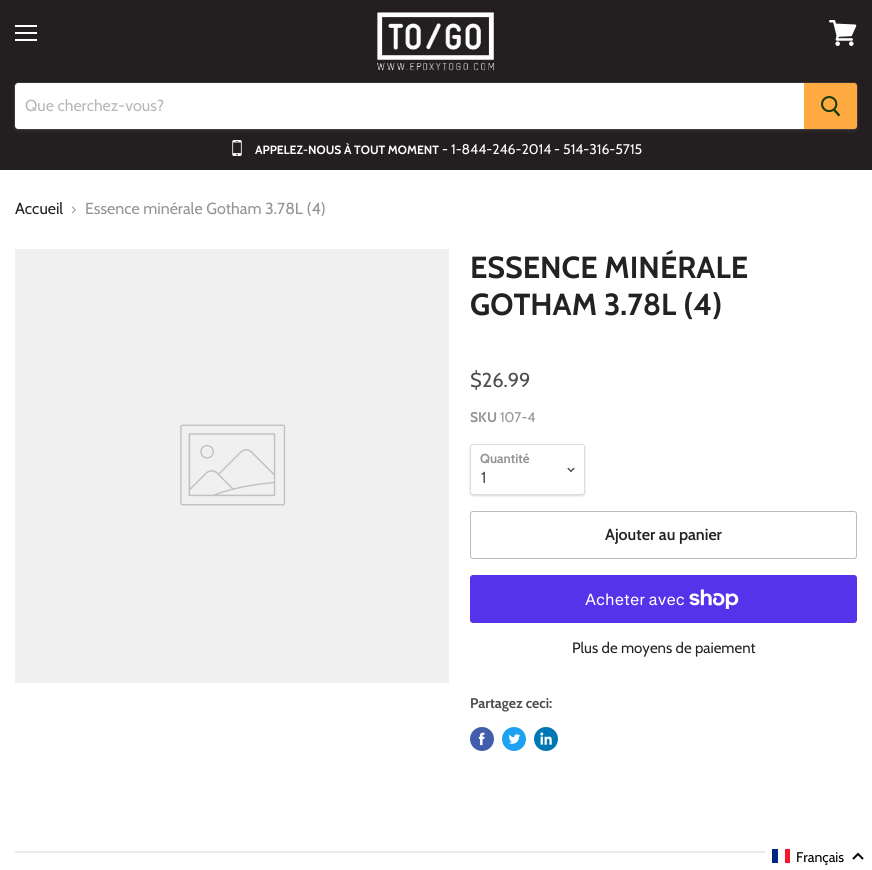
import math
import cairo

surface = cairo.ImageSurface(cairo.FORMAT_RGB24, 872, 870)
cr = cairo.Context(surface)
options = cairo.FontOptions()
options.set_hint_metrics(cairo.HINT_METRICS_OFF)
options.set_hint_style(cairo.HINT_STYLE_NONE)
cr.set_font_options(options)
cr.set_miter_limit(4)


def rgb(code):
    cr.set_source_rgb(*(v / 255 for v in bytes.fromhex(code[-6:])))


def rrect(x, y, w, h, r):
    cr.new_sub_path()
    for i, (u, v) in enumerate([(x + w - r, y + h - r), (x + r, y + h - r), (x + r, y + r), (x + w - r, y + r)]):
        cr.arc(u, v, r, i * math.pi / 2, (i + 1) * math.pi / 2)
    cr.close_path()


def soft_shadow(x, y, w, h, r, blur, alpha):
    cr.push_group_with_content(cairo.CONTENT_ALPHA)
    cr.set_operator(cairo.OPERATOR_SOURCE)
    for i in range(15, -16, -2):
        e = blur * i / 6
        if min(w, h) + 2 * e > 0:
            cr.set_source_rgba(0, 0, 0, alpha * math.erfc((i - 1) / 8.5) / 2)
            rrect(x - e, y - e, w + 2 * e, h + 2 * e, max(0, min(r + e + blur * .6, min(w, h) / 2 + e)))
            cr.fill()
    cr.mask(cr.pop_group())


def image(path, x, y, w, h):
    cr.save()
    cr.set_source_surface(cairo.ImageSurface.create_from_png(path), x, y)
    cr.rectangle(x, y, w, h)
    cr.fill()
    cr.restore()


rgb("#ffffff")
cr.paint()
for x, y, w, h, color in [
    (0, 0, 872, 170, "#231f20"),
    (15, 25, 22, 2, "#ffffff"),
    (15, 32, 22, 2, "#ffffff"),
    (15, 39, 22, 2, "#ffffff"),
]:
    rgb(color)
    cr.rectangle(x, y, w, h)
    cr.fill()
image("img/1.png", 829, 20, 28, 26)
image("img/2.png", 375, 10, 122, 63)
rgb("#7f7f7f")
soft_shadow(14, 84, 844, 48, 4, 1.5, 0.11)
rrect(14.5, 82.5, 843, 47, 3.5)
cr.set_source_rgba(0.498, 0.498, 0.498, 0.2)
cr.set_line_width(1)
cr.stroke()
rgb("#ffffff")
cr.new_path()
cr.move_to(18, 83)
cr.line_to(804, 83)
cr.line_to(804, 129)
cr.line_to(18, 129)
cr.curve_to(16.5, 129, 15, 127.5, 15, 126)
cr.line_to(15, 86)
cr.curve_to(15, 84.5, 16.5, 83, 18, 83)
cr.close_path()
cr.fill()
rgb("#ffab41")
cr.new_path()
cr.move_to(804.5, 83.5)
cr.line_to(854, 83.5)
cr.curve_to(855.5, 83.5, 856.5, 84.5, 856.5, 86)
cr.line_to(856.5, 126)
cr.curve_to(856.5, 127.5, 855.5, 128.5, 854, 128.5)
cr.line_to(804.5, 128.5)
cr.close_path()
cr.fill_preserve()
cr.stroke()
image("img/3.png", 821, 96, 20, 21)
image("img/4.png", 232, 140, 10, 16)
image("img/5.png", 72, 206, 4, 8)
rgb("#f0f0f0")
cr.rectangle(15, 249, 434, 434)
cr.fill()
image("img/6.png", 180, 424, 106, 82)
rgb("#000000")
soft_shadow(470, 445, 115, 51, 3, 1, 0.15)
rgb("#ffffff")
rrect(470.5, 444.5, 114, 50, 2.5)
cr.fill_preserve()
rgb("#dddddd")
cr.stroke()
image("img/7.png", 567, 467, 8, 6)
rrect(470.5, 511.5, 386, 47, 2.5)
rgb("#bbbbbb")
cr.stroke()
rgb("#5433eb")
rrect(470, 575, 387, 48, 3)
cr.fill()
image("img/8.png", 689, 589, 50, 20)
rgb("#425dab")
cr.arc(482, 739, 12, 0, 2 * math.pi)
cr.fill()
image("img/9.png", 478, 732, 7, 14)
rgb("#1da1f2")
cr.arc(514, 739, 12, 0, 2 * math.pi)
cr.fill()
image("img/10.png", 508, 734, 13, 10)
rgb("#0077b5")
cr.arc(546, 739, 12, 0, 2 * math.pi)
cr.fill()
image("img/11.png", 540, 732, 12, 13)
for x, y, w, h, color in [
    (15, 851, 750, 2, "#ebebeb"),
    (772, 849, 6, 14, "#00267f"),
    (785, 849, 5, 14, "#f31830"),
]:
    rgb(color)
    cr.rectangle(x, y, w, h)
    cr.fill()
cr.new_path()
cr.move_to(863, 859)
cr.line_to(858, 854)
cr.line_to(853, 859)
rgb("#000000")
cr.set_line_width(2)
cr.stroke()
cr.select_font_face("Cabin")
cr.set_font_size(16)
rgb("#b8b8b8")
cr.move_to(25, 111)
cr.show_text("Que cherchez-vous?")
cr.select_font_face("Cabin", cairo.FONT_SLANT_NORMAL, cairo.FONT_WEIGHT_BOLD)
cr.set_font_size(12)
rgb("#ffffff")
cr.move_to(255, 154)
cr.show_text("APPELEZ-NOUS À TOUT MOMENT")
cr.select_font_face("Cabin")
cr.set_font_size(14)
cr.move_to(442, 154)
cr.show_text("- 1-844-246-2014")
cr.move_to(554, 154)
cr.show_text("- 514-316-5715")
cr.set_font_size(16)
rgb("#222222")
cr.move_to(15, 214)
cr.show_text("Accueil")
rgb("#949494")
cr.move_to(85, 214)
cr.show_text("Essence minérale Gotham 3.78L (4)")
cr.select_font_face("Cabin", cairo.FONT_SLANT_NORMAL, cairo.FONT_WEIGHT_BOLD)
cr.set_font_size(30.5)
rgb("#222222")
cr.move_to(470, 278)
cr.show_text("ESSENCE MINÉRALE")
cr.move_to(470, 315)
cr.show_text("GOTHAM 3.78L (4)")
cr.select_font_face("Cabin")
cr.set_font_size(20)
rgb("#4d4d4d")
cr.move_to(470, 387)
cr.show_text("$26.99")
cr.select_font_face("Cabin", cairo.FONT_SLANT_NORMAL, cairo.FONT_WEIGHT_BOLD)
cr.set_font_size(14)
rgb("#949494")
cr.move_to(470, 422)
cr.show_text("SKU")
cr.select_font_face("Cabin")
cr.move_to(500, 422)
cr.show_text("107-4")
cr.select_font_face("Cabin", cairo.FONT_SLANT_NORMAL, cairo.FONT_WEIGHT_BOLD)
cr.set_font_size(13)
cr.move_to(480, 463)
cr.show_text("Quantité")
cr.select_font_face("Cabin")
cr.set_font_size(16)
rgb("#4d4d4d")
cr.move_to(481, 483)
cr.show_text("1")
cr.select_font_face("Cabin SemiBold")
rgb("#222222")
cr.move_to(605, 540)
cr.show_text("Ajouter au panier")
cr.select_font_face("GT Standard")
rgb("#ffffff")
cr.move_to(585, 605)
cr.show_text("Acheter avec")
cr.select_font_face("Cabin")
cr.set_font_size(15)
rgb("#222222")
cr.move_to(572, 653)
cr.show_text("Plus de moyens de paiement")
cr.select_font_face("Cabin", cairo.FONT_SLANT_NORMAL, cairo.FONT_WEIGHT_BOLD)
cr.set_font_size(14)
rgb("#4d4d4d")
cr.move_to(470, 708)
cr.show_text("Partagez ceci:")
cr.select_font_face("Cabin")
rgb("#000000")
cr.move_to(796, 862)
cr.show_text("Français")
surface.write_to_png("page.png")
